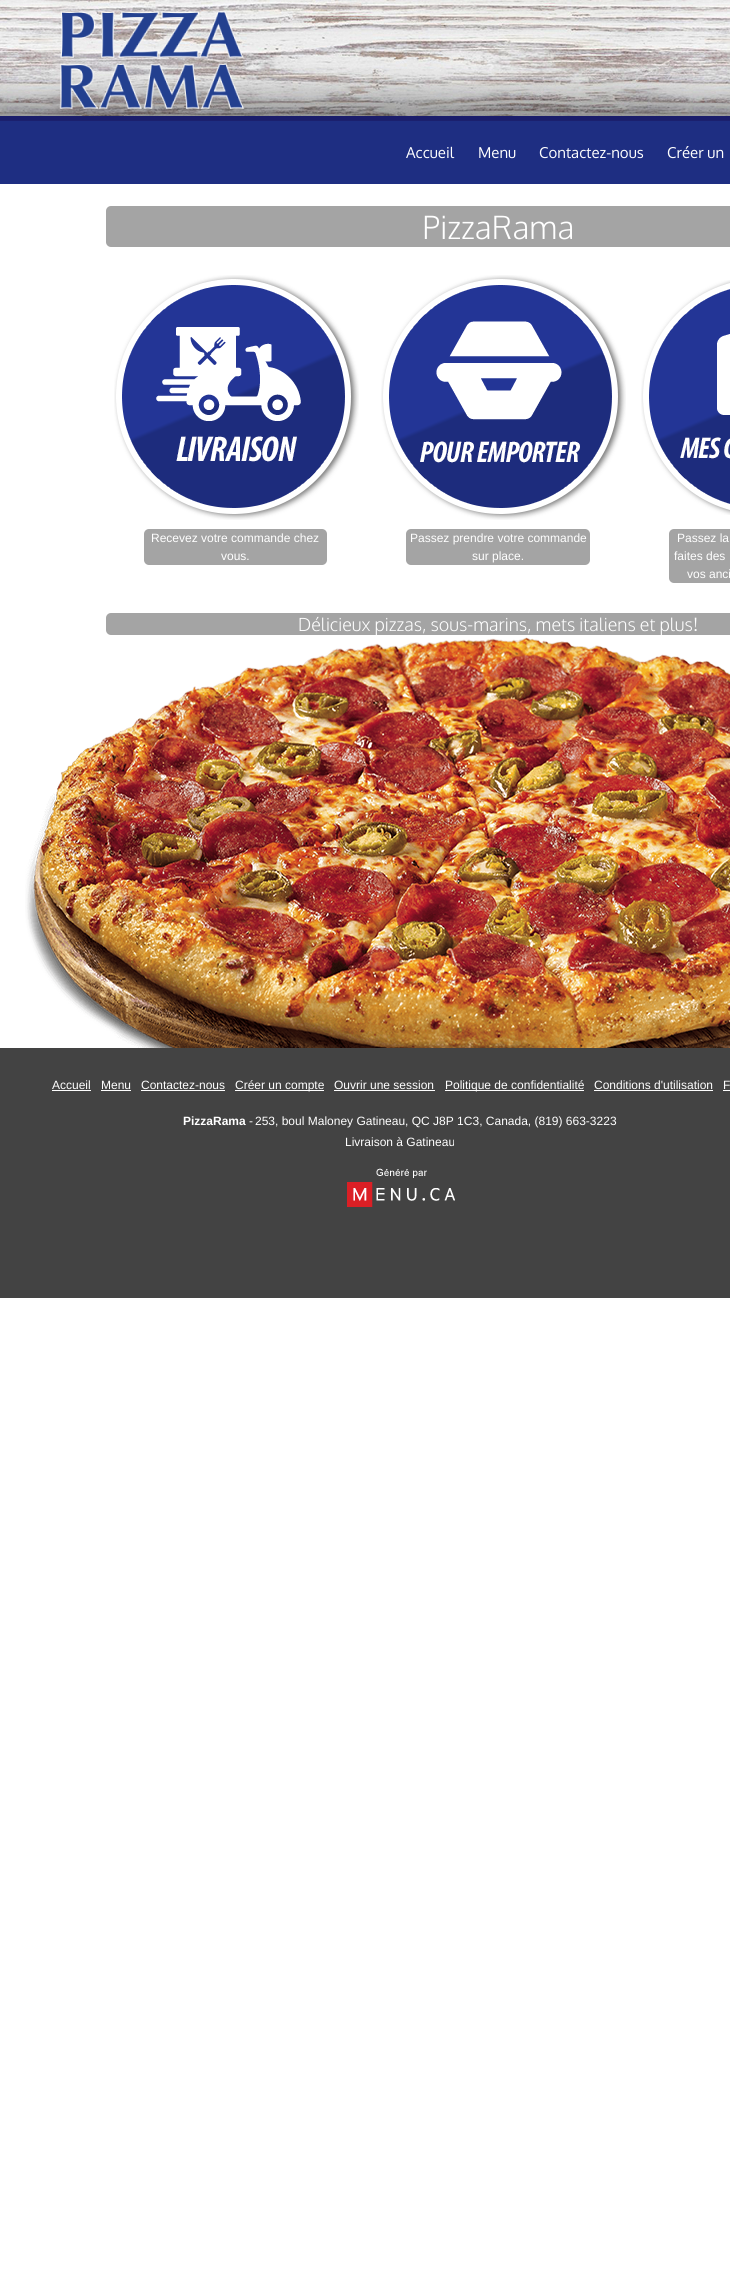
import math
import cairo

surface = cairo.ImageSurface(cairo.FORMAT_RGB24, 730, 2270)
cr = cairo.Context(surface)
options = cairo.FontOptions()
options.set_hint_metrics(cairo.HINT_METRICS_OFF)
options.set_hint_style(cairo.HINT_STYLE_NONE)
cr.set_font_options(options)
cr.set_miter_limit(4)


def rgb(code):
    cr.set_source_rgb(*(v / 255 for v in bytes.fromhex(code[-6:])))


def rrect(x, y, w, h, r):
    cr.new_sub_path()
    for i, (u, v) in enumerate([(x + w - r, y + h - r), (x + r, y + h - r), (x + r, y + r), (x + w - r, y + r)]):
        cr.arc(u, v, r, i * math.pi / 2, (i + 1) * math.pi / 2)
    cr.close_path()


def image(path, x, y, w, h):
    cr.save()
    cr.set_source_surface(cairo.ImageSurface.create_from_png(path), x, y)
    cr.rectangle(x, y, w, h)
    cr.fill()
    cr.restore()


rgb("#ffffff")
cr.paint()
image("img/1.png", 0, 0, 730, 184)
image("img/2.png", 59, 10, 186, 99)
image("img/3.png", 25, 637, 705, 411)
rgb("#a4a4a4")
rrect(106, 206, 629, 41, 5)
cr.fill()
image("img/4.png", 114, 275, 245, 245)
image("img/5.png", 381, 275, 245, 245)
image("img/6.png", 641, 280, 89, 235)
rrect(144, 529, 183, 36, 5)
cr.fill()
rrect(406, 529, 184, 36, 5)
cr.fill()
rrect(669, 529, 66, 54, 5)
cr.fill()
rrect(106, 613, 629, 22, 5)
cr.fill()
for x, y, w, h, color in [
    (0, 1048, 730, 250, "#434343"),
    (52, 1090, 39, 1, "#ffffff"),
    (101, 1090, 30, 1, "#ffffff"),
    (141, 1090, 84, 1, "#ffffff"),
    (235, 1090, 89, 1, "#ffffff"),
    (334, 1090, 101, 1, "#ffffff"),
    (445, 1090, 139, 1, "#ffffff"),
    (594, 1090, 119, 1, "#ffffff"),
    (723, 1090, 7, 1, "#ffffff"),
]:
    rgb(color)
    cr.rectangle(x, y, w, h)
    cr.fill()
image("img/7.png", 347, 1168, 108, 39)
cr.select_font_face("Oxygen")
cr.set_font_size(15)
for x, y, s in [
    (406, 158, "Accueil"),
    (478, 158, "Menu"),
    (539, 158, "Contactez-nous"),
    (667, 158, "Créer un"),
]:
    cr.move_to(x, y)
    cr.show_text(s)
cr.select_font_face("Oxygen Light")
cr.set_font_size(32)
cr.move_to(422, 239)
cr.show_text("PizzaRama")
cr.select_font_face("Liberation Sans")
cr.set_font_size(12)
for x, y, s in [
    (151, 542, "Recevez votre commande chez"),
    (221, 560, "vous."),
    (410, 542, "Passez prendre votre commande"),
    (472, 560, "sur place."),
    (677, 542, "Passez la"),
    (674, 560, "faites des"),
    (687, 578, "vos anci"),
]:
    cr.move_to(x, y)
    cr.show_text(s)
cr.select_font_face("Oxygen Light")
cr.set_font_size(18)
cr.move_to(298, 631)
cr.show_text("Délicieux pizzas, sous-marins, mets italiens et plus!")
cr.select_font_face("Liberation Sans")
cr.set_font_size(12)
for x, y, s in [
    (52, 1089, "Accueil"),
    (101, 1089, "Menu"),
    (141, 1089, "Contactez-nous"),
    (235, 1089, "Créer un compte"),
    (334, 1089, "Ouvrir une session"),
    (445, 1089, "Politique de confidentialité"),
    (594, 1089, "Conditions d'utilisation"),
    (723, 1089, "F"),
]:
    cr.move_to(x, y)
    cr.show_text(s)
cr.select_font_face("Liberation Sans", cairo.FONT_SLANT_NORMAL, cairo.FONT_WEIGHT_BOLD)
cr.move_to(183, 1125)
cr.show_text("PizzaRama")
cr.select_font_face("Liberation Sans")
for x, y, s in [
    (249, 1125, "-"),
    (255, 1125, "253, boul Maloney Gatineau, QC J8P 1C3, Canada, (819) 663-3223"),
    (345, 1146, "Livraison à Gatineau"),
]:
    cr.move_to(x, y)
    cr.show_text(s)
surface.write_to_png("page.png")
